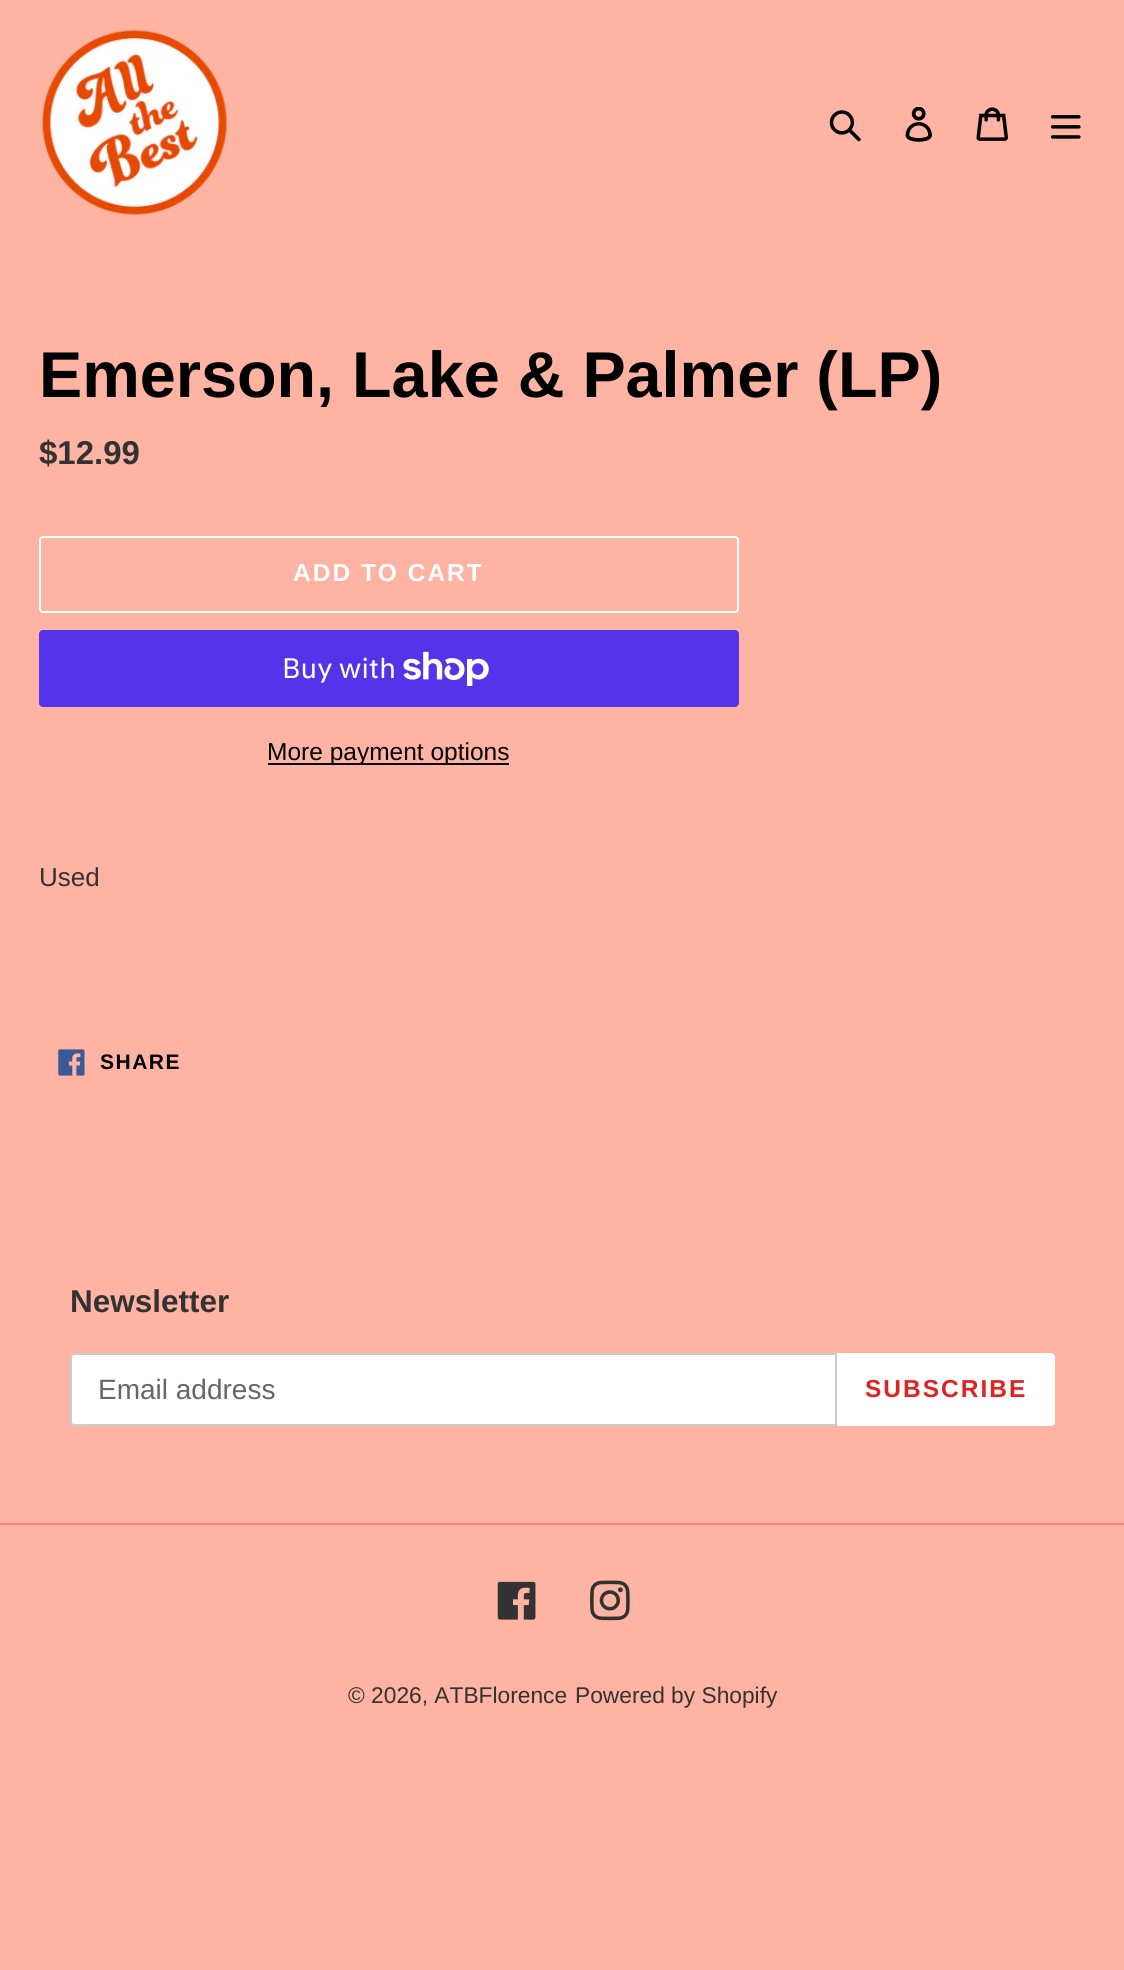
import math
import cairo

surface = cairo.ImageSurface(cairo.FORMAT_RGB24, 1124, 1970)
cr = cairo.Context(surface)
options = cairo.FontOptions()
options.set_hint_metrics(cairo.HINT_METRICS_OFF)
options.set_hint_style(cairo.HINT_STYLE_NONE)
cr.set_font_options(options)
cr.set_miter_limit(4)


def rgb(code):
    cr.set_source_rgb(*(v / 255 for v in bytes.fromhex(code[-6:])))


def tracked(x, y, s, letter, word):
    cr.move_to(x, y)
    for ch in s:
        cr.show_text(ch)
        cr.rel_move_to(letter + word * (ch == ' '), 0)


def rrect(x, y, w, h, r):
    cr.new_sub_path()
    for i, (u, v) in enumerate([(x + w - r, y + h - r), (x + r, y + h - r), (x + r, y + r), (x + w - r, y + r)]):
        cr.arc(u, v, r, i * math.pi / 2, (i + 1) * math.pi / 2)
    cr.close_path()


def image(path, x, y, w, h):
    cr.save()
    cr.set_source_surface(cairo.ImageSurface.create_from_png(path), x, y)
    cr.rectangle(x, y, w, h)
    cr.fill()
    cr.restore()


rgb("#ffb3a2")
cr.paint()
image("img/1.png", 41, 30, 186, 185)
image("img/2.png", 829, 110, 32, 32)
image("img/3.png", 905, 107, 27, 35)
image("img/4.png", 976, 107, 32, 34)
image("img/5.png", 1050, 115, 31, 24)
rrect(40, 537, 698, 75, 3)
rgb("#ffffff")
cr.stroke()
rgb("#5433eb")
rrect(39, 630, 700, 77, 4)
cr.fill()
image("img/6.png", 403, 651, 86, 35)
rgb("#000000")
cr.rectangle(268, 763, 241, 2)
cr.fill()
image("img/7.png", 58, 1049, 27, 27)
rgb("#ffffff")
cr.new_path()
cr.move_to(74, 1354)
cr.line_to(836, 1354)
cr.line_to(836, 1425)
cr.line_to(74, 1425)
cr.curve_to(72.5, 1425, 71, 1423.5, 71, 1422)
cr.line_to(71, 1357)
cr.curve_to(71, 1355.5, 72.5, 1354, 74, 1354)
cr.close_path()
cr.fill_preserve()
rgb("#cccccc")
cr.stroke()
rgb("#ffffff")
cr.new_path()
cr.move_to(837, 1353)
cr.line_to(1051, 1353)
cr.curve_to(1053, 1353, 1055, 1355, 1055, 1357)
cr.line_to(1055, 1422)
cr.curve_to(1055, 1424, 1053, 1426, 1051, 1426)
cr.line_to(837, 1426)
cr.close_path()
cr.fill()
rgb("#ff896f")
cr.rectangle(0, 1523, 1124, 2)
cr.fill()
image("img/8.png", 497, 1581, 39, 39)
image("img/9.png", 590, 1580, 40, 41)
cr.select_font_face("Liberation Sans", cairo.FONT_SLANT_NORMAL, cairo.FONT_WEIGHT_BOLD)
cr.set_font_size(64.75)
rgb("#000000")
cr.move_to(39, 397)
cr.show_text("Emerson, Lake & Palmer (LP)")
cr.set_font_size(33)
rgb("#333232")
cr.move_to(39, 464)
cr.show_text("$12.99")
cr.set_font_size(24.5)
rgb("#ffffff")
tracked(293, 581, "ADD TO CART", 2, 0)
cr.select_font_face("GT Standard")
cr.set_font_size(28)
cr.move_to(282, 678)
cr.show_text("Buy with")
cr.select_font_face("Liberation Sans")
cr.set_font_size(24.5)
rgb("#000000")
cr.move_to(267, 760)
cr.show_text("More payment options")
cr.set_font_size(26)
rgb("#333232")
cr.move_to(39, 886)
cr.show_text("Used")
cr.select_font_face("Liberation Sans", cairo.FONT_SLANT_NORMAL, cairo.FONT_WEIGHT_BOLD)
cr.set_font_size(21)
rgb("#000000")
tracked(100, 1069, "SHARE", 1.5, 0)
cr.set_font_size(31.5)
rgb("#333232")
cr.move_to(70, 1312)
cr.show_text("Newsletter")
cr.select_font_face("Liberation Sans")
cr.set_font_size(28)
rgb("#666666")
cr.move_to(98, 1399)
cr.show_text("Email address")
cr.select_font_face("Liberation Sans", cairo.FONT_SLANT_NORMAL, cairo.FONT_WEIGHT_BOLD)
cr.set_font_size(24.5)
rgb("#e22120")
tracked(865, 1397, "SUBSCRIBE", 2, 0)
cr.select_font_face("Liberation Sans")
cr.set_font_size(22.75)
rgb("#333232")
cr.move_to(348, 1703)
cr.show_text("© 2026, ATBFlorence")
cr.move_to(575, 1703)
cr.show_text("Powered by Shopify")
surface.write_to_png("page.png")
